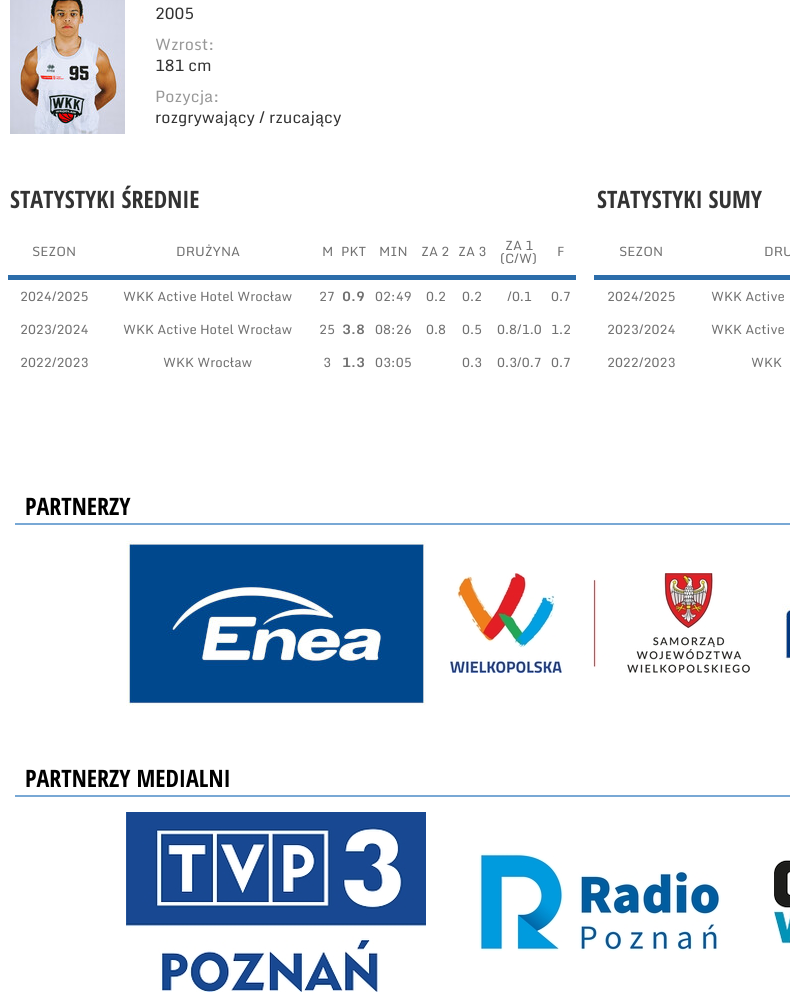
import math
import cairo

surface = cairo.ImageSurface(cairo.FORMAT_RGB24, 790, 998)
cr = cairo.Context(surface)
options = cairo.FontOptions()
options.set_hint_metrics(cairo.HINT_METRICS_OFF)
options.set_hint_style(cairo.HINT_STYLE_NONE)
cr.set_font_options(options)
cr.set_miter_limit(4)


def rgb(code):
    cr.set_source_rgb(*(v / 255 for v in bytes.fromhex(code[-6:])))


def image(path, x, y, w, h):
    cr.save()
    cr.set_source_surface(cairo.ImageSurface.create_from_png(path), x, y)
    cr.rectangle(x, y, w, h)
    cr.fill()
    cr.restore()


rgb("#ffffff")
cr.paint()
image("img/1.png", 10, 0, 115, 134)
for x, y, w, h, color in [
    (8, 275, 568, 5, "#2c6daa"),
    (594, 275, 196, 5, "#2c6daa"),
    (15, 523, 775, 2, "#78a8d5"),
]:
    rgb(color)
    cr.rectangle(x, y, w, h)
    cr.fill()
image("img/2.png", 126, 540, 300, 166)
image("img/3.png", 450, 573, 300, 100)
image("img/4.png", 782, 604, 8, 56)
cr.rectangle(15, 795, 775, 2)
cr.fill()
image("img/5.png", 126, 812, 300, 180)
image("img/6.png", 479, 853, 242, 98)
image("img/7.png", 774, 860, 16, 84)
cr.select_font_face("Monda")
cr.set_font_size(16)
rgb("#333333")
cr.move_to(155, 19)
cr.show_text("2005")
rgb("#989898")
cr.move_to(155, 50)
cr.show_text("Wzrost:")
rgb("#333333")
cr.move_to(155, 71)
cr.show_text("181 cm")
rgb("#989898")
cr.move_to(155, 102)
cr.show_text("Pozycja:")
rgb("#333333")
cr.move_to(155, 123)
cr.show_text("rozgrywający / rzucający")
cr.select_font_face("Open Sans Condensed", cairo.FONT_SLANT_NORMAL, cairo.FONT_WEIGHT_BOLD)
cr.set_font_size(24)
cr.move_to(10, 208)
cr.show_text("STATYSTYKI ŚREDNIE")
cr.select_font_face("Monda")
cr.set_font_size(13)
rgb("#717171")
for x, y, s in [
    (32, 256, "SEZON"),
    (176, 256, "DRUŻYNA"),
    (322, 256, "M"),
    (341, 256, "PKT"),
    (379, 256, "MIN"),
    (421, 256, "ZA 2"),
    (458, 256, "ZA 3"),
    (505, 250, "ZA 1"),
    (500, 263, "(C/W)"),
    (557, 256, "F"),
    (20, 301, "2024/2025"),
    (123, 301, "WKK Active Hotel Wrocław"),
    (319, 301, "27"),
]:
    cr.move_to(x, y)
    cr.show_text(s)
cr.select_font_face("Monda", cairo.FONT_SLANT_NORMAL, cairo.FONT_WEIGHT_BOLD)
cr.move_to(342, 301)
cr.show_text("0.9")
cr.select_font_face("Monda")
for x, y, s in [
    (375, 301, "02:49"),
    (426, 301, "0.2"),
    (462, 301, "0.2"),
    (507, 301, "/0.1"),
    (551, 301, "0.7"),
    (20, 334, "2023/2024"),
    (123, 334, "WKK Active Hotel Wrocław"),
    (319, 334, "25"),
]:
    cr.move_to(x, y)
    cr.show_text(s)
cr.select_font_face("Monda", cairo.FONT_SLANT_NORMAL, cairo.FONT_WEIGHT_BOLD)
cr.move_to(342, 334)
cr.show_text("3.8")
cr.select_font_face("Monda")
for x, y, s in [
    (375, 334, "08:26"),
    (426, 334, "0.8"),
    (462, 334, "0.5"),
    (497, 334, "0.8/1.0"),
    (551, 334, "1.2"),
    (20, 367, "2022/2023"),
    (163, 367, "WKK Wrocław"),
    (323, 367, "3"),
]:
    cr.move_to(x, y)
    cr.show_text(s)
cr.select_font_face("Monda", cairo.FONT_SLANT_NORMAL, cairo.FONT_WEIGHT_BOLD)
cr.move_to(342, 367)
cr.show_text("1.3")
cr.select_font_face("Monda")
for x, y, s in [
    (375, 367, "03:05"),
    (462, 367, "0.3"),
    (497, 367, "0.3/0.7"),
    (551, 367, "0.7"),
]:
    cr.move_to(x, y)
    cr.show_text(s)
cr.select_font_face("Open Sans Condensed", cairo.FONT_SLANT_NORMAL, cairo.FONT_WEIGHT_BOLD)
cr.set_font_size(24)
rgb("#333333")
cr.move_to(597, 208)
cr.show_text("STATYSTYKI SUMY")
cr.select_font_face("Monda")
cr.set_font_size(13)
rgb("#717171")
for x, y, s in [
    (619, 256, "SEZON"),
    (764, 256, "DRU"),
    (607, 301, "2024/2025"),
    (711, 301, "WKK Active"),
    (607, 334, "2023/2024"),
    (711, 334, "WKK Active"),
    (607, 367, "2022/2023"),
    (751, 367, "WKK"),
]:
    cr.move_to(x, y)
    cr.show_text(s)
cr.select_font_face("Open Sans Condensed", cairo.FONT_SLANT_NORMAL, cairo.FONT_WEIGHT_BOLD)
cr.set_font_size(24)
rgb("#000000")
cr.move_to(25, 515)
cr.show_text("PARTNERZY")
cr.move_to(25, 787)
cr.show_text("PARTNERZY MEDIALNI")
surface.write_to_png("page.png")
